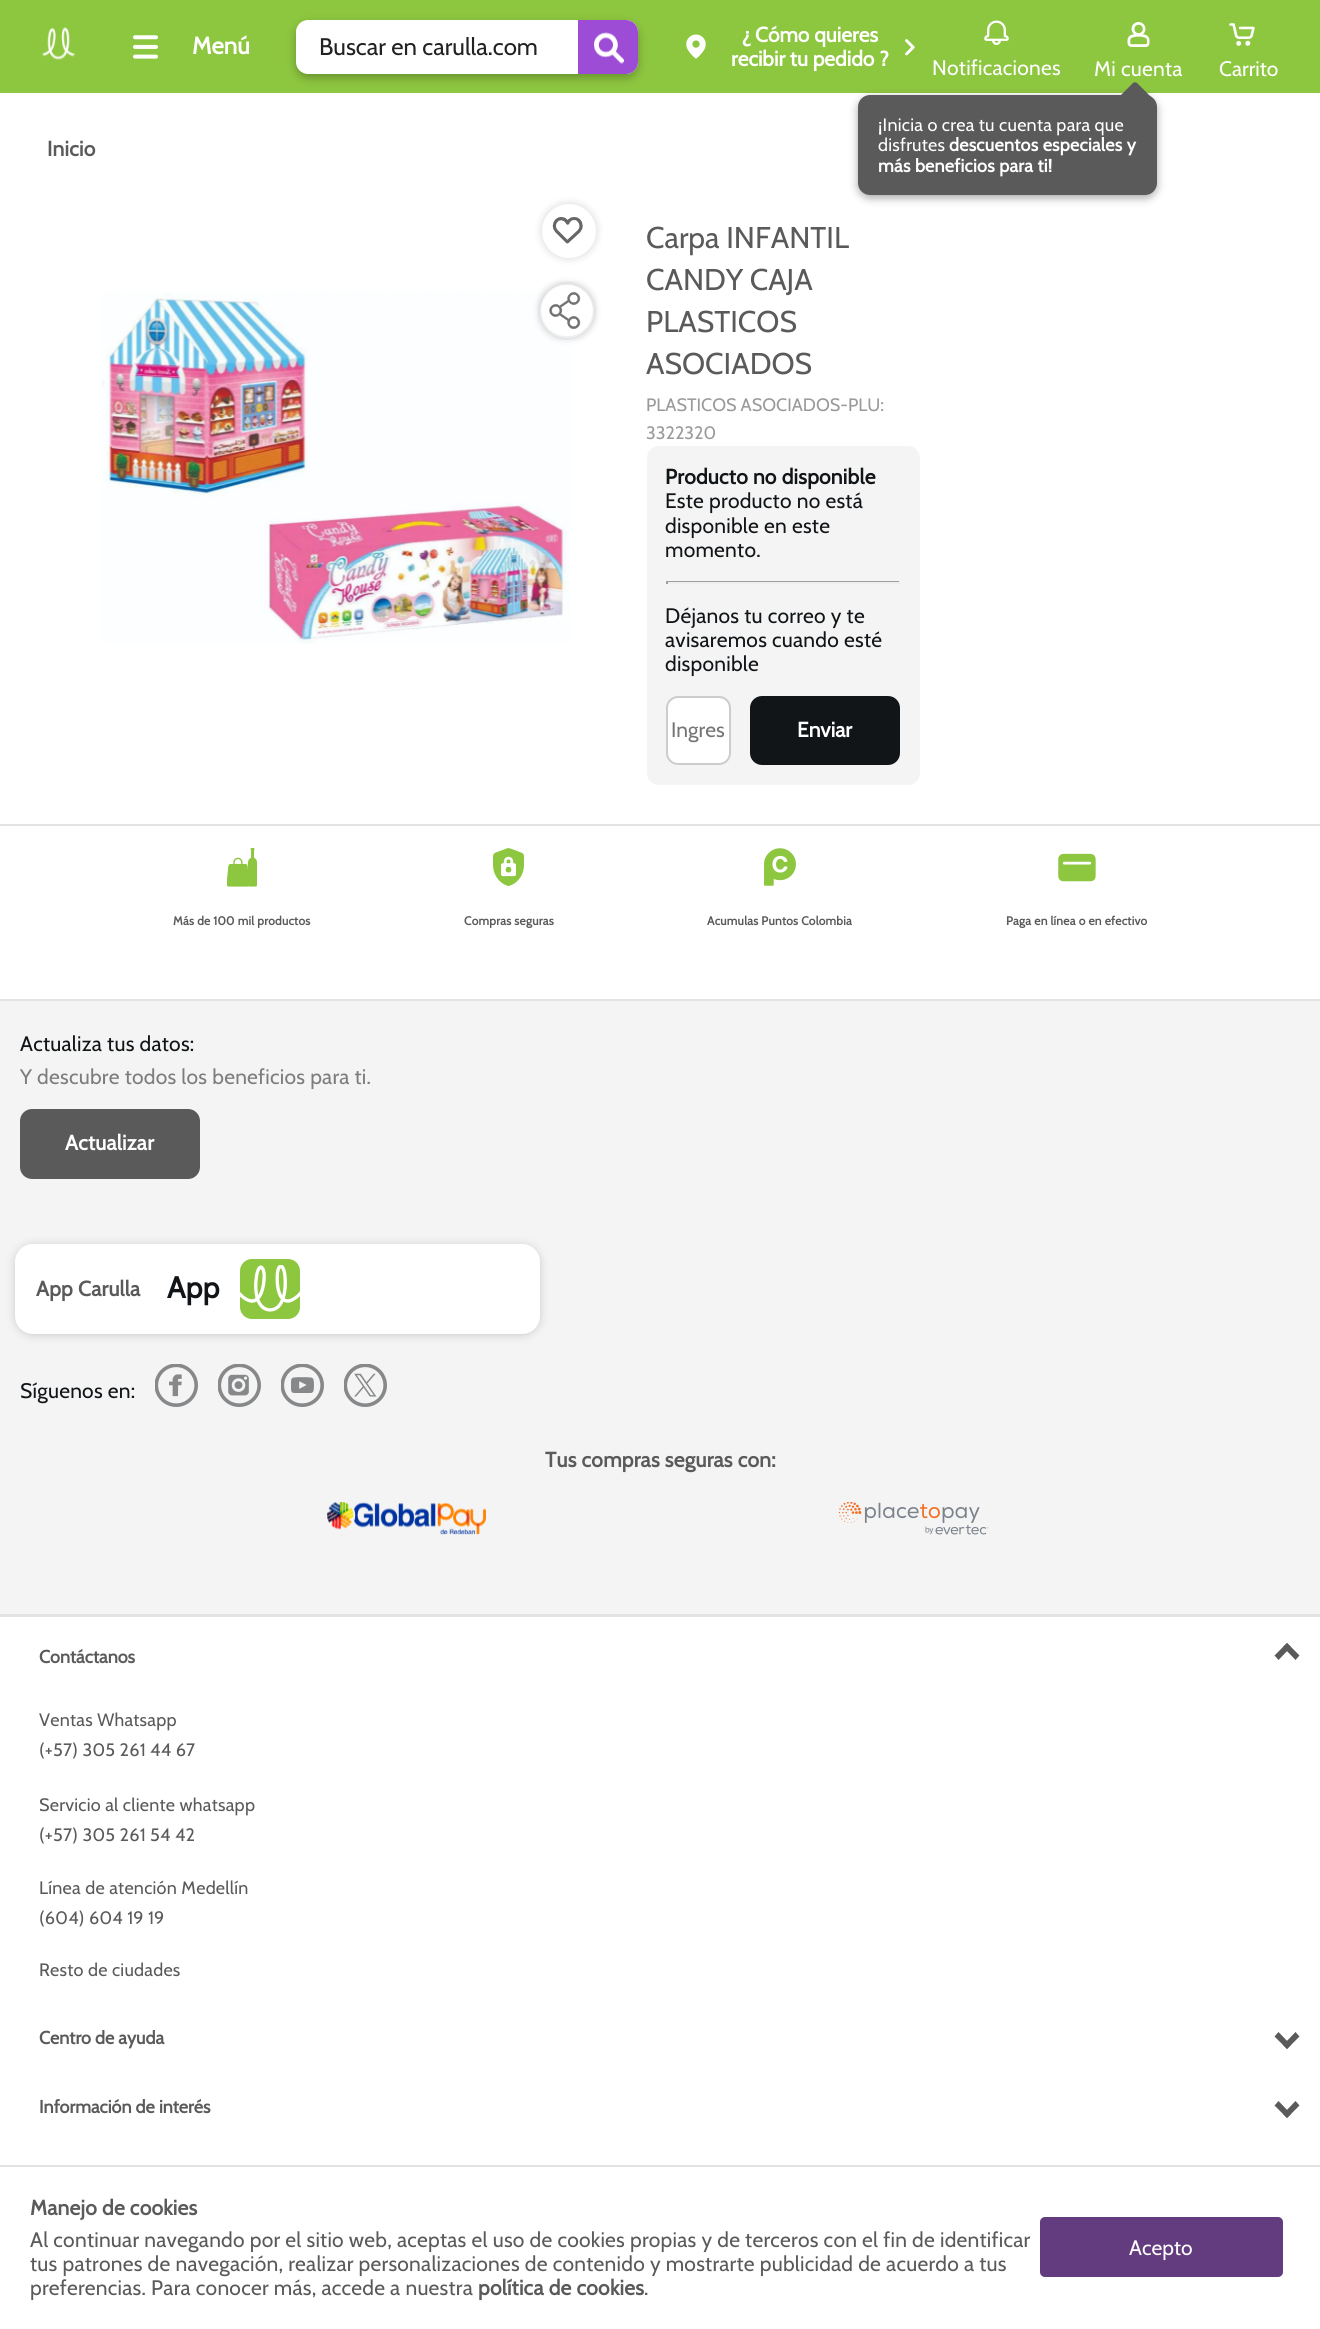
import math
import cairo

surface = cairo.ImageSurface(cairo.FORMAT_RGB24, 1320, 2329)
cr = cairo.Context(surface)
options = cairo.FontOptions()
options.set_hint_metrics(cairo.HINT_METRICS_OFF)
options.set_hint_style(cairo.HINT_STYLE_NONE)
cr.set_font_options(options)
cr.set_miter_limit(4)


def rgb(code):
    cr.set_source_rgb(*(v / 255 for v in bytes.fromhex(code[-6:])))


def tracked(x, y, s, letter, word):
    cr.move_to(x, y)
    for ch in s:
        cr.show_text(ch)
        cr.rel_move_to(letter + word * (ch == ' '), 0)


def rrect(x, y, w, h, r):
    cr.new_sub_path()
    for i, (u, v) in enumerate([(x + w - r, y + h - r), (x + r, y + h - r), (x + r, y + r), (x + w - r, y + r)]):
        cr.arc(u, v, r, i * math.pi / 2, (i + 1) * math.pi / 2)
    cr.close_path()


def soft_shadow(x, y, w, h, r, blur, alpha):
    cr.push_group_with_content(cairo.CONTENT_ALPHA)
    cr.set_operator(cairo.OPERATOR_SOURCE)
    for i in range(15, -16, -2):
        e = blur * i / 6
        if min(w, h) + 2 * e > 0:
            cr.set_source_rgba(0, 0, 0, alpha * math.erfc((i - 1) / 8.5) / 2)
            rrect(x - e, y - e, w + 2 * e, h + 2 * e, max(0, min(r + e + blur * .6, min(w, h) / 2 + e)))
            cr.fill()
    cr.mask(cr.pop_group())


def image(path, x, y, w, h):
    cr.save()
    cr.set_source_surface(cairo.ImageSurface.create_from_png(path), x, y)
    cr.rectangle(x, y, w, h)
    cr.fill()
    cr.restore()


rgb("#ffffff")
cr.paint()
rgb("#8dc63f")
cr.rectangle(0, 0, 1320, 93)
cr.fill()
image("img/1.png", 42, 27, 33, 33)
image("img/2.png", 133, 35, 25, 24)
rgb("#ffffff")
rrect(296, 20, 342, 54, 12)
cr.fill()
cr.save()
cr.set_fill_rule(cairo.FILL_RULE_EVEN_ODD)
cr.new_path()
cr.move_to(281, 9)
cr.line_to(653, 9)
cr.line_to(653, 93)
cr.line_to(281, 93)
cr.close_path()
cr.move_to(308, 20)
cr.line_to(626, 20)
cr.curve_to(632.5, 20, 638, 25.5, 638, 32)
cr.line_to(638, 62)
cr.curve_to(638, 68.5, 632.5, 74, 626, 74)
cr.line_to(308, 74)
cr.curve_to(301.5, 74, 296, 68.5, 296, 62)
cr.line_to(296, 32)
cr.curve_to(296, 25.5, 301.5, 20, 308, 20)
cr.close_path()
cr.clip()
rgb("#000000")
soft_shadow(296, 24, 342, 54, 12, 4.5, 0.26)
cr.restore()
rgb("#9c4cd5")
cr.new_path()
cr.move_to(578, 20)
cr.line_to(626, 20)
cr.curve_to(632.5, 20, 638, 25.5, 638, 32)
cr.line_to(638, 62)
cr.curve_to(638, 68.5, 632.5, 74, 626, 74)
cr.line_to(578, 74)
cr.close_path()
cr.fill()
image("img/3.png", 594, 32, 30, 32)
image("img/4.png", 686, 34, 20, 25)
image("img/5.png", 905, 39, 10, 17)
image("img/6.png", 984, 20, 25, 25)
image("img/7.png", 1127, 22, 23, 25)
rgb("#000000")
soft_shadow(858, 98, 299, 100, 12, 4.5, 0.34)
rgb("#5a5a5a")
rrect(858, 95, 299, 100, 12)
cr.fill()
image("img/8.png", 1229, 23, 26, 23)
rgb("#000000")
soft_shadow(542, 204, 54, 54, 27, 4.5, 0.16)
rgb("#ffffff")
cr.arc(569, 231, 27, 0, 2 * math.pi)
cr.fill()
image("img/9.png", 552, 217, 31, 27)
image("img/11.png", 101, 292, 469, 352)
rgb("#000000")
soft_shadow(540, 284, 54, 54, 27, 4.5, 0.16)
rgb("#ffffff")
cr.arc(567, 311, 27, 0, 2 * math.pi)
cr.fill()
image("img/10.png", 537, 281, 60, 59)
rgb("#f4f4f4")
rrect(647, 446, 273, 339, 12)
cr.fill()
for x, y, w, h, color in [
    (666, 581, 234, 1, "#9f9f9f"),
    (899, 581, 2, 3, "#eeeeee"),
    (666, 582, 234, 2, "#eeeeee"),
    (666, 581, 2, 3, "#9f9f9f"),
]:
    rgb(color)
    cr.rectangle(x, y, w, h)
    cr.fill()
rgb("#ffffff")
rrect(667, 697, 63, 67, 11)
cr.fill_preserve()
rgb("#cccccc")
cr.stroke()
rgb("#111517")
rrect(750, 696, 150, 69, 12)
cr.fill()
rgb("#e3e3e3")
cr.rectangle(0, 824, 1320, 2)
cr.fill()
cr.rectangle(0, 999, 1320, 2)
cr.fill()
image("img/12.png", 227, 848, 30, 39)
image("img/13.png", 493, 848, 31, 38)
image("img/14.png", 764, 848, 32, 38)
image("img/15.png", 1058, 853, 38, 29)
rgb("#f4f4f4")
cr.rectangle(0, 1001, 1320, 613)
cr.fill()
rgb("#5a5a5a")
rrect(20, 1109, 180, 70, 12)
cr.fill()
rgb("#2e2e2e")
soft_shadow(15, 1245, 525, 90, 18, 4.5, 0.22)
rgb("#ffffff")
rrect(15, 1244, 525, 90, 18)
cr.fill()
image("img/16.png", 240, 1259, 60, 60)
image("img/17.png", 155, 1364, 43, 43)
image("img/18.png", 218, 1364, 43, 43)
image("img/19.png", 281, 1364, 43, 43)
image("img/20.png", 344, 1364, 43, 43)
image("img/21.png", 327, 1502, 159, 33)
image("img/22.png", 838, 1502, 151, 33)
rgb("#e3e3e3")
cr.rectangle(0, 1614, 1320, 3)
cr.fill()
rgb("#5a5a5a")
cr.new_path()
cr.move_to(1287, 1643)
cr.line_to(1299.5, 1655.5)
cr.line_to(1295.5, 1660)
cr.line_to(1283, 1647)
cr.close_path()
cr.fill()
cr.new_path()
cr.move_to(1287, 1643)
cr.line_to(1291, 1647)
cr.line_to(1278.5, 1660)
cr.line_to(1274.5, 1655.5)
cr.close_path()
cr.fill()
cr.new_path()
cr.move_to(1287, 2049)
cr.line_to(1274.5, 2036.5)
cr.line_to(1278.5, 2032)
cr.line_to(1291, 2045)
cr.close_path()
cr.fill()
cr.new_path()
cr.move_to(1287, 2049)
cr.line_to(1283, 2045)
cr.line_to(1295.5, 2032)
cr.line_to(1299.5, 2036.5)
cr.close_path()
cr.fill()
cr.new_path()
cr.move_to(1287, 2118)
cr.line_to(1274.5, 2105.5)
cr.line_to(1278.5, 2101)
cr.line_to(1291, 2114)
cr.close_path()
cr.fill()
cr.new_path()
cr.move_to(1287, 2118)
cr.line_to(1283, 2114)
cr.line_to(1295.5, 2101)
cr.line_to(1299.5, 2105.5)
cr.close_path()
cr.fill()
rgb("#e3e3e3")
cr.rectangle(0, 2165, 1320, 2)
cr.fill()
rgb("#633b7f")
rrect(1040, 2217, 243, 60, 5)
cr.fill()
cr.select_font_face("Cabin", cairo.FONT_SLANT_NORMAL, cairo.FONT_WEIGHT_BOLD)
cr.set_font_size(24)
rgb("#ffffff")
cr.move_to(192, 54)
cr.show_text("Menú")
cr.select_font_face("Cabin")
rgb("#222222")
cr.move_to(319, 55)
cr.show_text("Buscar en carulla.com")
cr.select_font_face("Cabin", cairo.FONT_SLANT_NORMAL, cairo.FONT_WEIGHT_BOLD)
cr.set_font_size(21)
rgb("#ffffff")
cr.move_to(742, 42)
cr.show_text("¿ Cómo quieres")
cr.move_to(731, 66)
cr.show_text("recibir tu pedido ?")
cr.select_font_face("Cabin")
tracked(932, 75, "Notificaciones", 0.24, 0)
tracked(1094, 76, "Mi cuenta", 0.24, 0)
cr.set_font_size(18)
tracked(878, 131, "¡Inicia o crea tu cuenta para que", 0.24, 0)
rgb("#5a5a5a")
cr.new_path()
cr.move_to(1137, 83)
cr.line_to(1154, 100)
cr.curve_to(1155, 101, 1155, 103, 1154, 104)
cr.line_to(1137, 121)
cr.curve_to(1136, 122, 1134, 122, 1133, 121)
cr.line_to(1116, 104)
cr.curve_to(1115, 103, 1115, 101, 1116, 100)
cr.line_to(1133, 83)
cr.curve_to(1134, 82, 1136, 82, 1137, 83)
cr.close_path()
cr.fill()
rgb("#ffffff")
tracked(878, 151, "disfrutes", 0.24, 0)
cr.select_font_face("Cabin", cairo.FONT_SLANT_NORMAL, cairo.FONT_WEIGHT_BOLD)
tracked(949, 151, "descuentos especiales y", 0.24, 0)
tracked(878, 172, "más beneficios para ti!", 0.24, 0)
cr.select_font_face("Cabin")
cr.set_font_size(21)
cr.move_to(1219, 76)
cr.show_text("Carrito")
cr.select_font_face("Cabin", cairo.FONT_SLANT_NORMAL, cairo.FONT_WEIGHT_BOLD)
rgb("#5a5a5a")
tracked(47, 156, "Inicio", 0.24, 0)
cr.select_font_face("Cabin")
cr.set_font_size(30)
for x, y, s in [
    (646, 248, "Carpa INFANTIL"),
    (646, 290, "CANDY CAJA"),
    (646, 332, "PLASTICOS"),
    (646, 374, "ASOCIADOS"),
]:
    cr.move_to(x, y)
    cr.show_text(s)
cr.set_font_size(18)
rgb("#9a9a9a")
cr.move_to(646, 411)
cr.show_text("PLASTICOS ASOCIADOS-PLU:")
cr.move_to(646, 439)
cr.show_text("3322320")
cr.select_font_face("Cabin", cairo.FONT_SLANT_NORMAL, cairo.FONT_WEIGHT_BOLD)
cr.set_font_size(21)
rgb("#111517")
tracked(665, 484, "Producto no disponible", 0.24, 0)
cr.select_font_face("Cabin")
for x, y, s in [
    (665, 508, "Este producto no está"),
    (665, 533, "disponible en este"),
    (665, 557, "momento."),
    (665, 623, "Déjanos tu correo y te"),
    (665, 647, "avisaremos cuando esté"),
    (665, 671, "disponible"),
]:
    tracked(x, y, s, 0.24, 0)
rgb("#757575")
cr.move_to(671, 737)
cr.show_text("Ingres")
cr.select_font_face("Cabin", cairo.FONT_SLANT_NORMAL, cairo.FONT_WEIGHT_BOLD)
rgb("#ffffff")
cr.move_to(797, 737)
cr.show_text("Enviar")
cr.set_font_size(12)
rgb("#5a5a5a")
for x, y, s in [
    (173, 925, "Más de 100 mil productos"),
    (464, 925, "Compras seguras"),
    (707, 925, "Acumulas Puntos Colombia"),
    (1006, 925, "Paga en línea o en efectivo"),
]:
    tracked(x, y, s, 0.24, 0)
cr.select_font_face("Cabin")
cr.set_font_size(21)
rgb("#111517")
tracked(20, 1051, "Actualiza tus datos:", 0.24, 0)
rgb("#7d7d7d")
tracked(20, 1084, "Y descubre todos los beneficios para ti.", 0.24, 0)
cr.select_font_face("Cabin", cairo.FONT_SLANT_NORMAL, cairo.FONT_WEIGHT_BOLD)
rgb("#ffffff")
tracked(65, 1150, "Actualizar", 0.24, 0)
rgb("#5a5a5a")
tracked(36, 1296, "App Carulla", 0.24, 0)
cr.set_font_size(30)
rgb("#111517")
tracked(167, 1298, "App", 0.24, 0)
cr.select_font_face("Cabin")
cr.set_font_size(21)
tracked(20, 1398, "Síguenos en:", 0.24, 0)
cr.select_font_face("Cabin", cairo.FONT_SLANT_NORMAL, cairo.FONT_WEIGHT_BOLD)
rgb("#5a5a5a")
tracked(545, 1467, "Tus compras seguras con:", 0.24, 0)
cr.set_font_size(18)
cr.move_to(39, 1663)
cr.show_text("Contáctanos")
cr.select_font_face("Cabin")
for x, y, s in [
    (39, 1726, "Ventas Whatsapp"),
    (39, 1756, "(+57) 305 261 44 67"),
    (39, 1811, "Servicio al cliente whatsapp"),
    (39, 1841, "(+57) 305 261 54 42"),
    (39, 1894, "Línea de atención Medellín"),
    (39, 1924, "(604) 604 19 19"),
    (39, 1976, "Resto de ciudades"),
]:
    tracked(x, y, s, 0.24, 0)
cr.select_font_face("Cabin", cairo.FONT_SLANT_NORMAL, cairo.FONT_WEIGHT_BOLD)
cr.move_to(39, 2044)
cr.show_text("Centro de ayuda")
cr.move_to(39, 2113)
cr.show_text("Información de interés")
cr.set_font_size(21)
tracked(30, 2215, "Manejo de cookies", 0.24, 0)
cr.select_font_face("Cabin")
for x, y, s in [
    (30, 2247, "Al continuar navegando por el sitio web, aceptas el uso de cookies propias y de terceros con el fin de identificar"),
    (30, 2271, "tus patrones de navegación, realizar personalizaciones de contenido y mostrarte publicidad de acuerdo a tus"),
    (30, 2295, "preferencias. Para conocer más, accede a nuestra"),
]:
    tracked(x, y, s, 0.24, 0)
cr.select_font_face("Cabin", cairo.FONT_SLANT_NORMAL, cairo.FONT_WEIGHT_BOLD)
tracked(478, 2295, "política de cookies", 0.24, 0)
cr.select_font_face("Cabin")
tracked(644, 2295, ".", 0.24, 0)
rgb("#ffffff")
cr.move_to(1129, 2255)
cr.show_text("Acepto")
surface.write_to_png("page.png")
